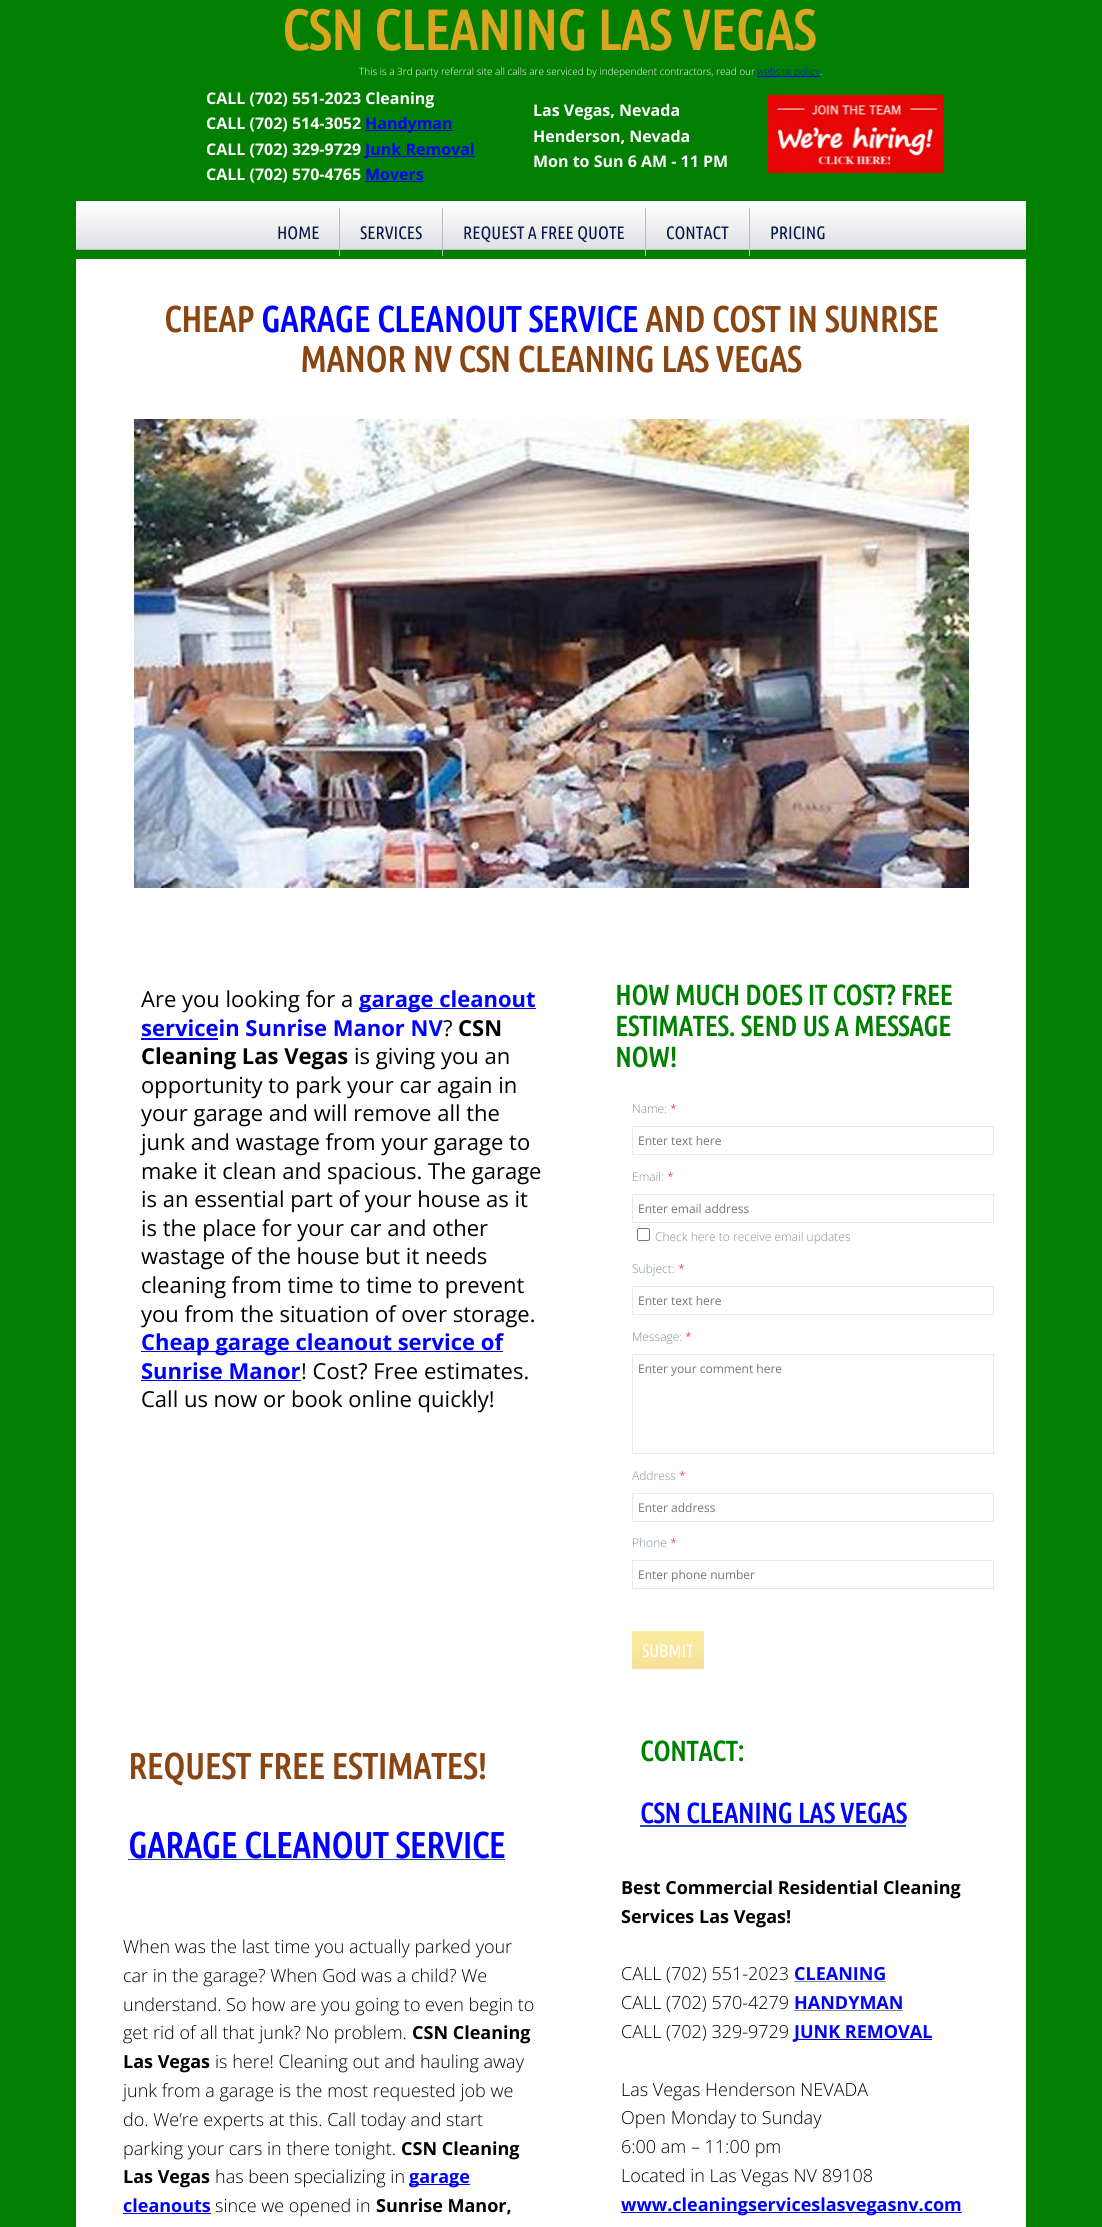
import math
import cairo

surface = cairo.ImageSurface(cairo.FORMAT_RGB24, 1102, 2227)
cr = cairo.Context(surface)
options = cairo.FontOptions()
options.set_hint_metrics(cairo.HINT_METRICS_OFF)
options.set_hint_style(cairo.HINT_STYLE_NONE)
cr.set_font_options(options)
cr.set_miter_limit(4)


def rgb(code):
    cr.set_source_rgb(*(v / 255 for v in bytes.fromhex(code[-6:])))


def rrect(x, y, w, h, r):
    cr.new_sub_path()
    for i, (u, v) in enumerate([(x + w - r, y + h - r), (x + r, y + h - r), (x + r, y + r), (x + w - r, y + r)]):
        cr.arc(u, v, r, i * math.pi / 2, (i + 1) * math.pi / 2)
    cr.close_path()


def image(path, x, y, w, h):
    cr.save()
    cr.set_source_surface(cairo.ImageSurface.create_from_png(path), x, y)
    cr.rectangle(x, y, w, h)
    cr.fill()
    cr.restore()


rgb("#007f00")
cr.paint()
for x, y, w, h, color in [
    (76, 259, 950, 1968, "#ffffff"),
    (757, 76, 63, 1, "#0000ff"),
    (365, 130, 88, 1, "#0000ff"),
    (365, 156, 110, 1, "#0000ff"),
    (365, 181, 59, 1, "#0000ff"),
]:
    rgb(color)
    cr.rectangle(x, y, w, h)
    cr.fill()
image("img/1.png", 768, 95, 176, 78)
gradient = cairo.LinearGradient(551, 201, 551, 249)
gradient.add_color_stop_rgba(0, 1, 1, 1, 1)
gradient.add_color_stop_rgba(1, 0.871, 0.878, 0.894, 1)
cr.set_source(gradient)
cr.rectangle(76, 201, 950, 48)
cr.fill()
for x, y, w, h, color in [
    (76, 249, 950, 1, "#b9babe"),
    (339, 208, 1, 48, "#b9babe"),
    (442, 208, 1, 48, "#b9babe"),
    (645, 208, 1, 48, "#b9babe"),
    (749, 208, 1, 48, "#b9babe"),
]:
    rgb(color)
    cr.rectangle(x, y, w, h)
    cr.fill()
image("img/2.png", 134, 419, 835, 469)
for x, y, w, h, color in [
    (359, 1008, 177, 1, "#0000ff"),
    (141, 1038, 77, 2, "#0000ff"),
    (141, 1351, 362, 1, "#0000ff"),
    (141, 1380, 160, 1, "#0000ff"),
]:
    rgb(color)
    cr.rectangle(x, y, w, h)
    cr.fill()
cr.rectangle(632.5, 1126.5, 361, 28)
rgb("#e8e8e8")
cr.set_line_width(1)
cr.stroke()
cr.rectangle(632.5, 1194.5, 361, 28)
cr.stroke()
rrect(637.5, 1228.5, 12, 12, 1.5)
rgb("#767676")
cr.stroke()
cr.rectangle(632.5, 1286.5, 361, 28)
rgb("#e8e8e8")
cr.stroke()
cr.rectangle(632.5, 1354.5, 361, 99)
cr.stroke()
cr.rectangle(632.5, 1493.5, 361, 28)
cr.stroke()
cr.rectangle(632.5, 1560.5, 361, 28)
cr.stroke()
gradient = cairo.LinearGradient(668, 1631, 668, 1669)
gradient.add_color_stop_rgba(0, 0.98, 0.929, 0.624, 1)
gradient.add_color_stop_rgba(1, 0.969, 0.878, 0.604, 1)
cr.set_source(gradient)
cr.rectangle(632, 1631, 72, 38)
cr.fill()
for x, y, w, h, color in [
    (128, 1859, 377, 1, "#284ba9"),
    (640, 1825, 266, 2, "#284ba9"),
    (409, 2184, 61, 1, "#0000ff"),
    (123, 2213, 88, 1, "#0000ff"),
    (794, 1981, 92, 1, "#7b8f9e"),
    (794, 2010, 109, 1, "#7b8f9e"),
    (794, 2039, 138, 1, "#0000ff"),
    (621, 2212, 341, 1, "#0000ff"),
]:
    rgb(color)
    cr.rectangle(x, y, w, h)
    cr.fill()
cr.select_font_face("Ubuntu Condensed", cairo.FONT_SLANT_NORMAL, cairo.FONT_WEIGHT_BOLD)
cr.set_font_size(56)
rgb("#daa520")
cr.move_to(282, 50)
cr.show_text("CSN CLEANING LAS VEGAS")
cr.select_font_face("Open Sans Light")
cr.set_font_size(10)
rgb("#ffffff")
cr.move_to(359, 75)
cr.show_text("This is a 3rd party referral site all calls are serviced by independent contractors, read our")
rgb("#0000ff")
cr.move_to(757, 75)
cr.show_text("website policy")
rgb("#ffffff")
cr.move_to(820, 75)
cr.show_text(".")
cr.select_font_face("Open Sans", cairo.FONT_SLANT_NORMAL, cairo.FONT_WEIGHT_BOLD)
cr.set_font_size(16)
cr.move_to(206, 104)
cr.show_text("CALL (702) 551-2023 Cleaning")
cr.move_to(206, 129)
cr.show_text("CALL (702) 514-3052")
rgb("#0000ff")
cr.move_to(365, 129)
cr.show_text("Handyman")
rgb("#ffffff")
cr.move_to(206, 155)
cr.show_text("CALL (702) 329-9729")
rgb("#0000ff")
cr.move_to(365, 155)
cr.show_text("Junk Removal")
rgb("#ffffff")
cr.move_to(206, 180)
cr.show_text("CALL (702) 570-4765")
rgb("#0000ff")
cr.move_to(365, 180)
cr.show_text("Movers")
rgb("#ffffff")
for x, y, s in [
    (533, 116, "Las Vegas, Nevada"),
    (533, 142, "Henderson, Nevada"),
    (533, 167, "Mon to Sun 6 AM - 11 PM"),
]:
    cr.move_to(x, y)
    cr.show_text(s)
cr.select_font_face("Ubuntu Condensed")
cr.set_font_size(18)
rgb("#091647")
for x, y, s in [
    (277, 239, "HOME"),
    (360, 239, "SERVICES"),
    (463, 239, "REQUEST A FREE QUOTE"),
    (666, 239, "CONTACT"),
    (770, 239, "PRICING"),
]:
    cr.move_to(x, y)
    cr.show_text(s)
cr.select_font_face("Ubuntu Condensed", cairo.FONT_SLANT_NORMAL, cairo.FONT_WEIGHT_BOLD)
cr.set_font_size(36)
rgb("#8b4513")
cr.move_to(164, 332)
cr.show_text("CHEAP")
rgb("#0000ff")
cr.move_to(261, 332)
cr.show_text("GARAGE CLEANOUT SERVICE")
rgb("#8b4513")
cr.move_to(645, 332)
cr.show_text("AND COST IN SUNRISE")
cr.move_to(300, 372)
cr.show_text("MANOR NV CSN CLEANING LAS VEGAS")
cr.select_font_face("Open Sans")
cr.set_font_size(22)
rgb("#000000")
cr.move_to(141, 1007)
cr.show_text("Are you looking for a")
cr.select_font_face("Open Sans", cairo.FONT_SLANT_NORMAL, cairo.FONT_WEIGHT_BOLD)
rgb("#0000ff")
cr.move_to(359, 1007)
cr.show_text("garage cleanout")
cr.move_to(141, 1036)
cr.show_text("servicein Sunrise Manor NV")
cr.select_font_face("Open Sans")
rgb("#000000")
cr.move_to(443, 1036)
cr.show_text("?")
cr.select_font_face("Open Sans", cairo.FONT_SLANT_NORMAL, cairo.FONT_WEIGHT_BOLD)
cr.move_to(458, 1036)
cr.show_text("CSN")
cr.move_to(141, 1064)
cr.show_text("Cleaning Las Vegas")
cr.select_font_face("Open Sans")
for x, y, s in [
    (354, 1064, "is giving you an"),
    (141, 1093, "opportunity to park your car again in"),
    (141, 1121, "your garage and will remove all the"),
    (141, 1150, "junk and wastage from your garage to"),
    (141, 1179, "make it clean and spacious. The garage"),
    (141, 1207, "is an essential part of your house as it"),
    (141, 1236, "is the place for your car and other"),
    (141, 1264, "wastage of the house but it needs"),
    (141, 1293, "cleaning from time to time to prevent"),
    (141, 1322, "you from the situation of over storage."),
]:
    cr.move_to(x, y)
    cr.show_text(s)
cr.select_font_face("Open Sans", cairo.FONT_SLANT_NORMAL, cairo.FONT_WEIGHT_BOLD)
rgb("#0000ff")
cr.move_to(141, 1350)
cr.show_text("Cheap garage cleanout service of")
cr.move_to(141, 1379)
cr.show_text("Sunrise Manor")
cr.select_font_face("Open Sans")
rgb("#000000")
cr.move_to(301, 1379)
cr.show_text("! Cost? Free estimates.")
cr.move_to(141, 1407)
cr.show_text("Call us now or book online quickly!")
cr.select_font_face("Ubuntu Condensed", cairo.FONT_SLANT_NORMAL, cairo.FONT_WEIGHT_BOLD)
cr.set_font_size(28)
rgb("#008000")
for x, y, s in [
    (615, 1005, "HOW MUCH DOES IT COST? FREE"),
    (615, 1036, "ESTIMATES. SEND US A MESSAGE"),
    (615, 1067, "NOW!"),
]:
    cr.move_to(x, y)
    cr.show_text(s)
cr.select_font_face("Open Sans Light")
cr.set_font_size(12)
rgb("#7b8f9e")
cr.move_to(632, 1113)
cr.show_text("Name:")
rgb("#ff0000")
cr.move_to(670, 1113)
cr.show_text("*")
cr.select_font_face("Open Sans")
rgb("#757575")
cr.move_to(638, 1145)
cr.show_text("Enter text here")
cr.select_font_face("Open Sans Light")
rgb("#7b8f9e")
cr.move_to(632, 1181)
cr.show_text("Email:")
rgb("#ff0000")
cr.move_to(667, 1181)
cr.show_text("*")
cr.select_font_face("Open Sans")
rgb("#757575")
cr.move_to(638, 1213)
cr.show_text("Enter email address")
cr.select_font_face("Open Sans Light")
rgb("#7b8f9e")
cr.move_to(655, 1241)
cr.show_text("Check here to receive email updates")
cr.move_to(632, 1273)
cr.show_text("Subject:")
rgb("#ff0000")
cr.move_to(678, 1273)
cr.show_text("*")
cr.select_font_face("Open Sans")
rgb("#757575")
cr.move_to(638, 1305)
cr.show_text("Enter text here")
cr.select_font_face("Open Sans Light")
rgb("#7b8f9e")
cr.move_to(632, 1341)
cr.show_text("Message:")
rgb("#ff0000")
cr.move_to(685, 1341)
cr.show_text("*")
cr.select_font_face("Open Sans")
rgb("#757575")
cr.move_to(638, 1373)
cr.show_text("Enter your comment here")
cr.select_font_face("Open Sans Light")
rgb("#7b8f9e")
cr.move_to(632, 1480)
cr.show_text("Address")
rgb("#ff0000")
cr.move_to(679, 1480)
cr.show_text("*")
cr.select_font_face("Open Sans")
rgb("#757575")
cr.move_to(638, 1512)
cr.show_text("Enter address")
cr.select_font_face("Open Sans Light")
rgb("#7b8f9e")
cr.move_to(632, 1547)
cr.show_text("Phone")
rgb("#ff0000")
cr.move_to(670, 1547)
cr.show_text("*")
cr.select_font_face("Open Sans")
rgb("#757575")
cr.move_to(638, 1579)
cr.show_text("Enter phone number")
cr.select_font_face("Ubuntu Condensed")
cr.set_font_size(18)
rgb("#ffffff")
cr.move_to(642, 1657)
cr.show_text("SUBMIT")
cr.select_font_face("Ubuntu Condensed", cairo.FONT_SLANT_NORMAL, cairo.FONT_WEIGHT_BOLD)
cr.set_font_size(36)
rgb("#8b4513")
cr.move_to(128, 1779)
cr.show_text("REQUEST FREE ESTIMATES!")
rgb("#0000ff")
cr.move_to(128, 1858)
cr.show_text("GARAGE CLEANOUT SERVICE")
cr.set_font_size(28)
rgb("#008000")
cr.move_to(640, 1761)
cr.show_text("CONTACT:")
rgb("#0000ff")
cr.move_to(640, 1823)
cr.show_text("CSN CLEANING LAS VEGAS")
cr.select_font_face("Open Sans Light")
cr.set_font_size(18)
rgb("#000000")
for x, y, s in [
    (123, 1953, "When was the last time you actually parked your"),
    (123, 1982, "car in the garage? When God was a child? We"),
    (123, 2011, "understand. So how are you going to even begin to"),
    (123, 2039, "get rid of all that junk? No problem."),
]:
    cr.move_to(x, y)
    cr.show_text(s)
cr.select_font_face("Open Sans", cairo.FONT_SLANT_NORMAL, cairo.FONT_WEIGHT_BOLD)
cr.move_to(412, 2039)
cr.show_text("CSN Cleaning")
cr.move_to(123, 2068)
cr.show_text("Las Vegas")
cr.select_font_face("Open Sans Light")
for x, y, s in [
    (215, 2068, "is here! Cleaning out and hauling away"),
    (123, 2097, "junk from a garage is the most requested job we"),
    (123, 2126, "do. We’re experts at this. Call today and start"),
    (123, 2155, "parking your cars in there tonight."),
]:
    cr.move_to(x, y)
    cr.show_text(s)
cr.select_font_face("Open Sans", cairo.FONT_SLANT_NORMAL, cairo.FONT_WEIGHT_BOLD)
cr.move_to(401, 2155)
cr.show_text("CSN Cleaning")
cr.move_to(123, 2183)
cr.show_text("Las Vegas")
cr.select_font_face("Open Sans Light")
cr.move_to(215, 2183)
cr.show_text("has been specializing in")
cr.select_font_face("Open Sans", cairo.FONT_SLANT_NORMAL, cairo.FONT_WEIGHT_BOLD)
rgb("#0000ff")
cr.move_to(409, 2183)
cr.show_text("garage")
cr.move_to(123, 2212)
cr.show_text("cleanouts")
cr.select_font_face("Open Sans Light")
rgb("#000000")
cr.move_to(215, 2212)
cr.show_text("since we opened in")
cr.select_font_face("Open Sans", cairo.FONT_SLANT_NORMAL, cairo.FONT_WEIGHT_BOLD)
for x, y, s in [
    (376, 2212, "Sunrise Manor,"),
    (621, 1894, "Best Commercial Residential Cleaning"),
    (621, 1923, "Services Las Vegas!"),
]:
    cr.move_to(x, y)
    cr.show_text(s)
cr.select_font_face("Open Sans Light")
cr.move_to(621, 1980)
cr.show_text("CALL (702) 551-2023")
cr.select_font_face("Open Sans", cairo.FONT_SLANT_NORMAL, cairo.FONT_WEIGHT_BOLD)
rgb("#0000ff")
cr.move_to(794, 1980)
cr.show_text("CLEANING")
cr.select_font_face("Open Sans Light")
rgb("#000000")
cr.move_to(621, 2009)
cr.show_text("CALL (702) 570-4279")
cr.select_font_face("Open Sans", cairo.FONT_SLANT_NORMAL, cairo.FONT_WEIGHT_BOLD)
rgb("#0000ff")
cr.move_to(794, 2009)
cr.show_text("HANDYMAN")
cr.select_font_face("Open Sans Light")
rgb("#000000")
cr.move_to(621, 2038)
cr.show_text("CALL (702) 329-9729")
cr.select_font_face("Open Sans", cairo.FONT_SLANT_NORMAL, cairo.FONT_WEIGHT_BOLD)
rgb("#0000ff")
cr.move_to(794, 2038)
cr.show_text("JUNK REMOVAL")
cr.select_font_face("Open Sans Light")
rgb("#000000")
for x, y, s in [
    (621, 2096, "Las Vegas Henderson NEVADA"),
    (621, 2124, "Open Monday to Sunday"),
    (621, 2153, "6:00 am – 11:00 pm"),
    (621, 2182, "Located in Las Vegas NV 89108"),
]:
    cr.move_to(x, y)
    cr.show_text(s)
cr.select_font_face("Open Sans", cairo.FONT_SLANT_NORMAL, cairo.FONT_WEIGHT_BOLD)
rgb("#0000ff")
cr.move_to(621, 2211)
cr.show_text("www.cleaningserviceslasvegasnv.com")
surface.write_to_png("page.png")
